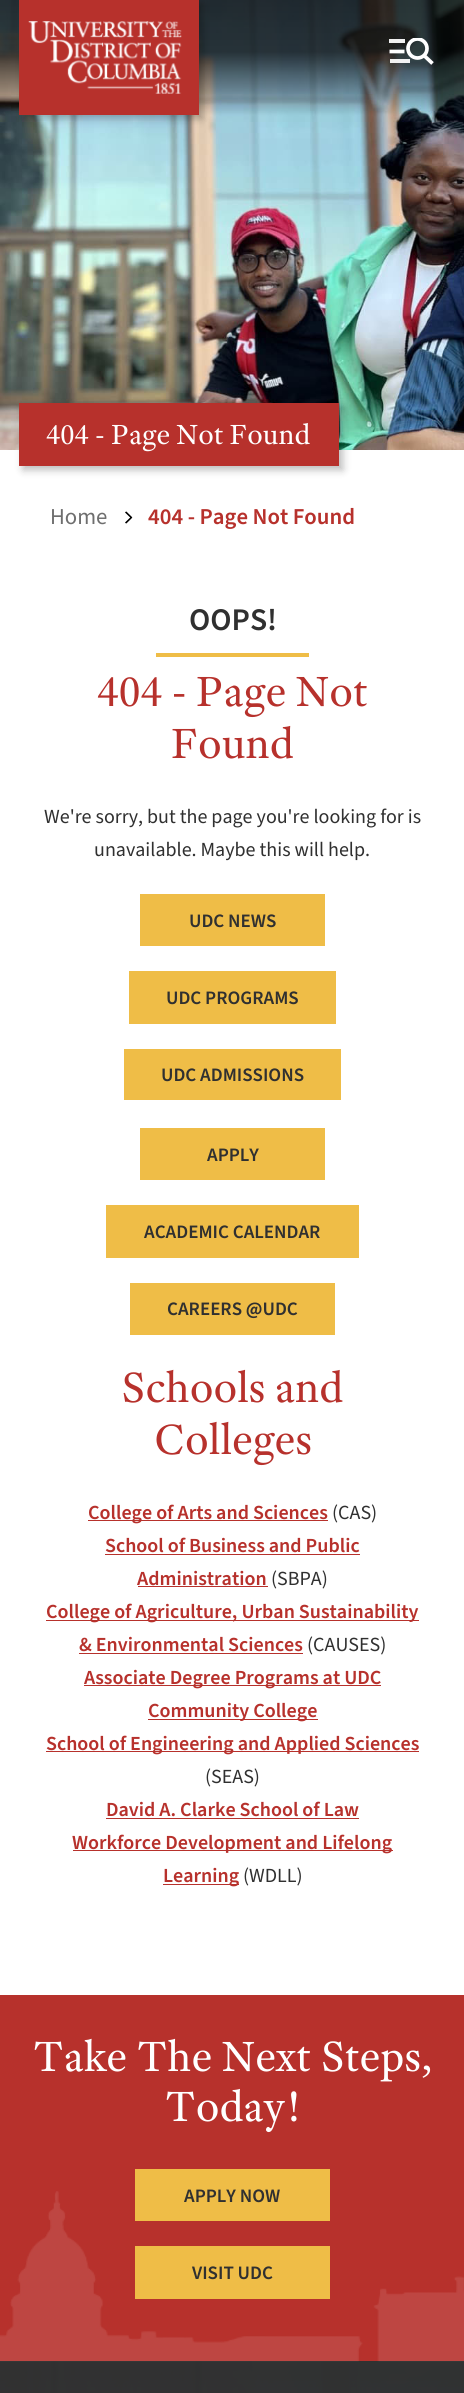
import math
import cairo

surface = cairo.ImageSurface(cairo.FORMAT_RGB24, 464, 2393)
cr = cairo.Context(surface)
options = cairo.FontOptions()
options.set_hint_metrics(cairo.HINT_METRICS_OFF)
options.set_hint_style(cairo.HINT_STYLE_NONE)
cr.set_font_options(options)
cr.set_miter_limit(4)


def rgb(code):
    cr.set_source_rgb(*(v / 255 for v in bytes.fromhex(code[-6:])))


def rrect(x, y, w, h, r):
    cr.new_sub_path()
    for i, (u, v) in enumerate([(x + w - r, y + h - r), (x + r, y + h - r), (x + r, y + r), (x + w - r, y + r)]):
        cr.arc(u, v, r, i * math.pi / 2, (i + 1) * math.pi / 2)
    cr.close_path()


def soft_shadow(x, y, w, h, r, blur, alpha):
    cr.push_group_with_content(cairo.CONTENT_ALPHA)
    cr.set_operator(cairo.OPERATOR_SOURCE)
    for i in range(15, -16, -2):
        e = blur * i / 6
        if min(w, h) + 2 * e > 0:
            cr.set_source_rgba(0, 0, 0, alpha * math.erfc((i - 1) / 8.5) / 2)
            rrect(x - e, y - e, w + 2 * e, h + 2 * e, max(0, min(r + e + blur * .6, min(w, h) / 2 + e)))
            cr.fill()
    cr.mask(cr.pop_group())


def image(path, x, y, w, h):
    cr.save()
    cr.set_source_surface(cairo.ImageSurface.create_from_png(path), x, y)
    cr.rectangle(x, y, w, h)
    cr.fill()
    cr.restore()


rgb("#ffffff")
cr.paint()
image("img/2.png", 0, 0, 464, 450)
rgb("#000000")
soft_shadow(23, 4, 180, 115, 0, 4, 0.26)
rgb("#b7312c")
cr.rectangle(19, 0, 180, 115)
cr.fill()
image("img/1.png", 28, 21, 154, 73)
cr.set_source_rgba(1, 1, 1, 0.93)
cr.rectangle(389, 39, 16, 4)
cr.fill()
cr.new_path()
cr.move_to(389.5, 51.5)
cr.line_to(404.5, 51.5)
rgb("#ffffff")
cr.set_line_width(3.7)
cr.stroke()
cr.set_source_rgba(1, 1, 1, 0.93)
cr.rectangle(390, 59, 20, 4)
cr.fill()
cr.save()
cr.rectangle(389, 38, 44, 27)
cr.clip()
cr.arc(417.5, 48.5, 9.5, 0, 2 * math.pi)
rgb("#ffffff")
cr.stroke()
cr.restore()
cr.new_path()
cr.move_to(423.5, 55)
cr.line_to(432.5, 63.5)
rgb("#ffffff")
cr.stroke()
rgb("#000000")
soft_shadow(23, 406, 320, 64, 0, 4, 0.26)
rgb("#b7312c")
cr.rectangle(19, 403, 320, 63)
cr.fill()
image("img/3.png", 125, 511, 8, 13)
for x, y, w, h, color in [
    (156, 653, 153, 4, "#efbd47"),
    (140, 894, 185, 52, "#efbd47"),
    (129, 971, 207, 53, "#efbd47"),
    (124, 1049, 217, 51, "#efbd47"),
    (140, 1128, 185, 52, "#efbd47"),
    (106, 1205, 253, 53, "#efbd47"),
    (130, 1283, 205, 52, "#efbd47"),
    (88, 1520, 240, 1, "#b7312c"),
    (105, 1554, 255, 1, "#b7312c"),
    (138, 1586, 130, 1, "#b7312c"),
    (46, 1620, 373, 1, "#b7312c"),
    (79, 1653, 224, 1, "#b7312c"),
    (84, 1685, 297, 1, "#b7312c"),
    (148, 1719, 170, 1, "#b7312c"),
    (46, 1751, 373, 1, "#b7312c"),
    (106, 1818, 253, 1, "#b7312c"),
    (73, 1850, 320, 1, "#b7312c"),
    (163, 1884, 76, 1, "#b7312c"),
    (0, 1995, 464, 366, "#b7312c"),
]:
    rgb(color)
    cr.rectangle(x, y, w, h)
    cr.fill()
image("img/5.png", 0, 2361, 464, 32)
image("img/4.png", 0, 2191, 464, 171)
rgb("#efbd47")
cr.rectangle(135, 2169, 195, 52)
cr.fill()
cr.rectangle(135, 2246, 195, 53)
cr.fill()
cr.select_font_face("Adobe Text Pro")
cr.set_font_size(29.5)
rgb("#ffffff")
cr.move_to(46, 444)
cr.show_text("404 - Page Not Found")
cr.select_font_face("Source Sans Pro")
cr.set_font_size(22.75)
rgb("#6e6e6e")
cr.move_to(50, 524)
cr.show_text("Home")
cr.select_font_face("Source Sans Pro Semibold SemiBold")
rgb("#b7312c")
cr.move_to(148, 524)
cr.show_text("404 - Page Not Found")
cr.set_font_size(31.5)
rgb("#303030")
cr.move_to(189, 630)
cr.show_text("OOPS!")
cr.select_font_face("Adobe Text Pro")
cr.set_font_size(45)
rgb("#b7312c")
cr.move_to(97, 706)
cr.show_text("404 - Page Not")
cr.move_to(171, 758)
cr.show_text("Found")
cr.select_font_face("Source Sans Pro")
cr.set_font_size(20)
rgb("#303030")
cr.move_to(44, 823)
cr.show_text("We're sorry, but the page you're looking for is")
cr.move_to(94, 856)
cr.show_text("unavailable. Maybe this will help.")
cr.select_font_face("Source Sans Pro Semibold SemiBold")
cr.set_font_size(19)
for x, y, s in [
    (189, 927, "UDC NEWS"),
    (166, 1004, "UDC PROGRAMS"),
    (161, 1081, "UDC ADMISSIONS"),
    (207, 1161, "APPLY"),
    (144, 1238, "ACADEMIC CALENDAR"),
    (167, 1315, "CAREERS @UDC"),
]:
    cr.move_to(x, y)
    cr.show_text(s)
cr.select_font_face("Adobe Text Pro")
cr.set_font_size(45)
rgb("#b7312c")
cr.move_to(121, 1402)
cr.show_text("Schools and")
cr.move_to(154, 1454)
cr.show_text("Colleges")
cr.select_font_face("Source Sans Pro Semibold SemiBold")
cr.set_font_size(20)
cr.move_to(88, 1519)
cr.show_text("College of Arts and Sciences")
cr.select_font_face("Source Sans Pro")
rgb("#303030")
cr.move_to(332, 1519)
cr.show_text("(CAS)")
cr.select_font_face("Source Sans Pro Semibold SemiBold")
rgb("#b7312c")
cr.move_to(105, 1552)
cr.show_text("School of Business and Public")
cr.move_to(137, 1585)
cr.show_text("Administration")
cr.select_font_face("Source Sans Pro")
rgb("#303030")
cr.move_to(271, 1585)
cr.show_text("(SBPA)")
cr.select_font_face("Source Sans Pro Semibold SemiBold")
rgb("#b7312c")
cr.move_to(46, 1618)
cr.show_text("College of Agriculture, Urban Sustainability")
cr.move_to(79, 1651)
cr.show_text("& Environmental Sciences")
cr.select_font_face("Source Sans Pro")
rgb("#303030")
cr.move_to(307, 1651)
cr.show_text("(CAUSES)")
cr.select_font_face("Source Sans Pro Semibold SemiBold")
rgb("#b7312c")
for x, y, s in [
    (84, 1684, "Associate Degree Programs at UDC"),
    (148, 1717, "Community College"),
    (46, 1750, "School of Engineering and Applied Sciences"),
]:
    cr.move_to(x, y)
    cr.show_text(s)
cr.select_font_face("Source Sans Pro")
rgb("#303030")
cr.move_to(205, 1783)
cr.show_text("(SEAS)")
cr.select_font_face("Source Sans Pro Semibold SemiBold")
rgb("#b7312c")
for x, y, s in [
    (106, 1816, "David A. Clarke School of Law"),
    (72, 1849, "Workforce Development and Lifelong"),
    (163, 1882, "Learning"),
]:
    cr.move_to(x, y)
    cr.show_text(s)
cr.select_font_face("Source Sans Pro")
rgb("#303030")
cr.move_to(243, 1882)
cr.show_text("(WDLL)")
cr.select_font_face("Adobe Text Pro")
cr.set_font_size(45)
rgb("#ffffff")
cr.move_to(33, 2071)
cr.show_text("Take The Next Steps,")
cr.move_to(165, 2121)
cr.show_text("Today!")
cr.select_font_face("Source Sans Pro Semibold SemiBold")
cr.set_font_size(19)
rgb("#303030")
cr.move_to(184, 2202)
cr.show_text("APPLY NOW")
cr.move_to(192, 2279)
cr.show_text("VISIT UDC")
surface.write_to_png("page.png")
